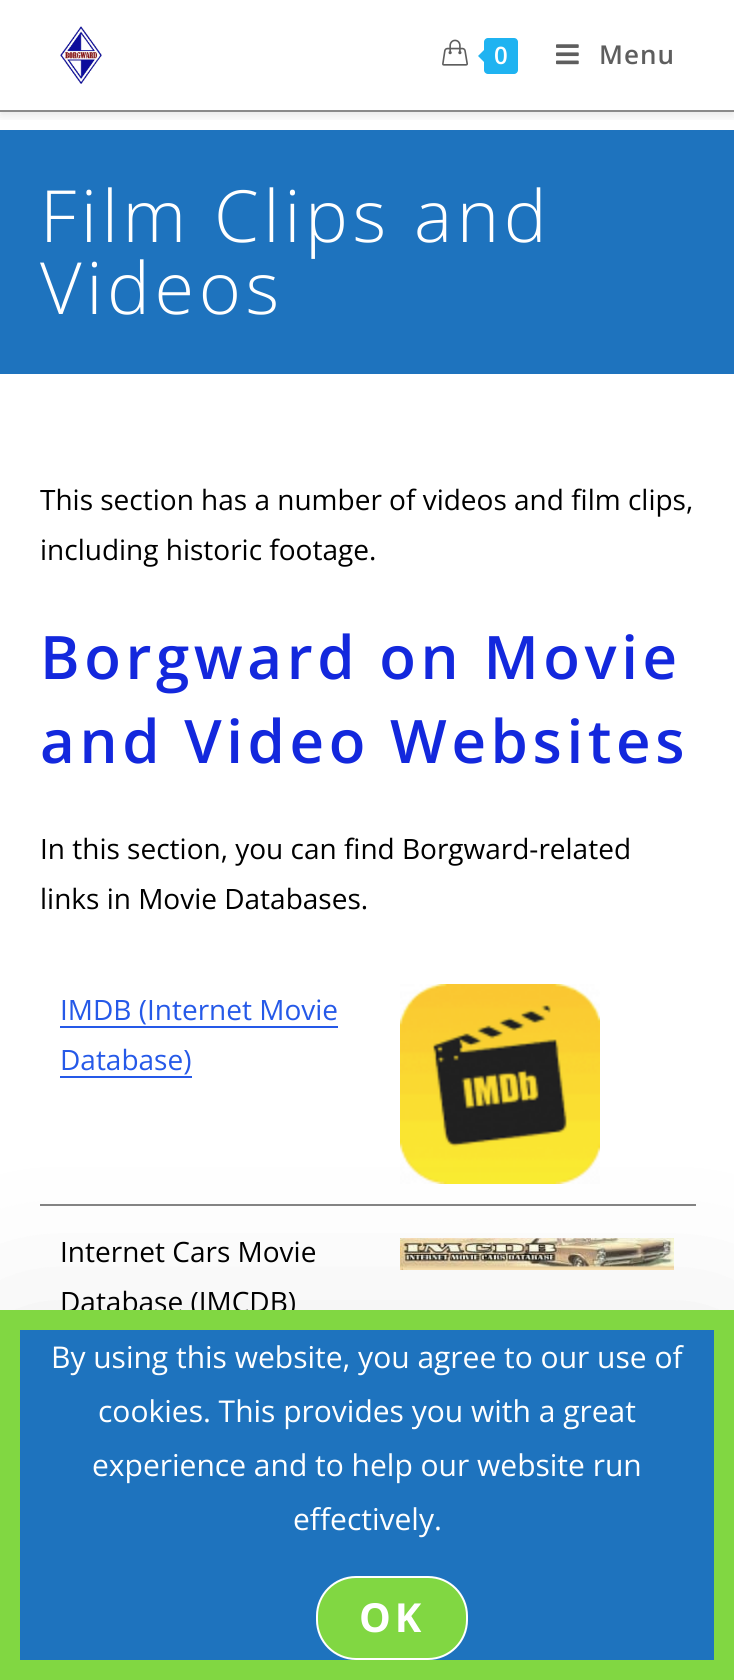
import math
import cairo

surface = cairo.ImageSurface(cairo.FORMAT_RGB24, 734, 1680)
cr = cairo.Context(surface)
options = cairo.FontOptions()
options.set_hint_metrics(cairo.HINT_METRICS_OFF)
options.set_hint_style(cairo.HINT_STYLE_NONE)
cr.set_font_options(options)
cr.set_miter_limit(4)


def rgb(code):
    cr.set_source_rgb(*(v / 255 for v in bytes.fromhex(code[-6:])))


def tracked(x, y, s, letter, word):
    cr.move_to(x, y)
    for ch in s:
        cr.show_text(ch)
        cr.rel_move_to(letter + word * (ch == ' '), 0)


def rrect(x, y, w, h, r):
    cr.new_sub_path()
    for i, (u, v) in enumerate([(x + w - r, y + h - r), (x + r, y + h - r), (x + r, y + r), (x + w - r, y + r)]):
        cr.arc(u, v, r, i * math.pi / 2, (i + 1) * math.pi / 2)
    cr.close_path()


def soft_shadow(x, y, w, h, r, blur, alpha):
    cr.push_group_with_content(cairo.CONTENT_ALPHA)
    cr.set_operator(cairo.OPERATOR_SOURCE)
    for i in range(15, -16, -2):
        e = blur * i / 6
        if min(w, h) + 2 * e > 0:
            cr.set_source_rgba(0, 0, 0, alpha * math.erfc((i - 1) / 8.5) / 2)
            rrect(x - e, y - e, w + 2 * e, h + 2 * e, max(0, min(r + e + blur * .6, min(w, h) / 2 + e)))
            cr.fill()
    cr.mask(cr.pop_group())


def image(path, x, y, w, h):
    cr.save()
    cr.set_source_surface(cairo.ImageSurface.create_from_png(path), x, y)
    cr.rectangle(x, y, w, h)
    cr.fill()
    cr.restore()


rgb("#ffffff")
cr.paint()
rgb("#1e73be")
cr.rectangle(0, 130, 734, 244)
cr.fill()
cr.save()
cr.rectangle(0, 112, 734, 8)
cr.clip()
rgb("#0d0d0d")
soft_shadow(0, 4, 734, 112, 0, 5, 0.1)
cr.restore()
rgb("#8a8a8a")
cr.rectangle(0, 110, 734, 2)
cr.fill()
image("img/1.png", 60, 26, 42, 58)
image("img/2.png", 442, 39, 26, 27)
rgb("#1fb3f1")
rrect(484, 38, 34, 36, 4)
cr.fill()
cr.new_path()
cr.move_to(488, 46)
cr.line_to(488, 66)
cr.line_to(478, 56)
cr.close_path()
cr.fill()
image("img/3.png", 556, 44, 23, 21)
rgb("#848484")
cr.rectangle(40, 1204, 656, 2)
cr.fill()
image("img/4.png", 400, 984, 200, 200)
rgb("#2559e8")
cr.rectangle(60, 1026, 278, 2)
cr.fill()
cr.rectangle(60, 1076, 132, 2)
cr.fill()
image("img/5.png", 400, 1238, 274, 32)
rgb("#000000")
soft_shadow(0, 1350, 734, 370, 0, 100, 0.1)
cr.select_font_face("Open Sans SemiBold")
cr.set_font_size(24)
rgb("#ffffff")
tracked(494, 64, "0", 1, 0)
cr.set_font_size(26)
rgb("#5e5e5e")
tracked(599, 64, "Menu", 1, 0)
cr.select_font_face("Open Sans Light")
cr.set_font_size(72)
rgb("#ffffff")
tracked(40, 242, "Film Clips and", 4.6, 0)
tracked(40, 314, "Videos", 4.6, 0)
cr.select_font_face("Open Sans")
cr.set_font_size(28)
rgb("#000000")
cr.move_to(40, 510)
cr.show_text("This section has a number of videos and film clips,")
cr.move_to(40, 560)
cr.show_text("including historic footage.")
cr.select_font_face("Open Sans SemiBold")
cr.set_font_size(60)
rgb("#1328dd")
tracked(40, 679, "Borgward on Movie", 4.6, 0)
tracked(40, 763, "and Video Websites", 4.6, 0)
cr.select_font_face("Open Sans")
cr.set_font_size(28)
rgb("#000000")
cr.move_to(40, 859)
cr.show_text("In this section, you can find Borgward-related")
cr.move_to(40, 909)
cr.show_text("links in Movie Databases.")
rgb("#2559e8")
cr.move_to(60, 1020)
cr.show_text("IMDB (Internet Movie")
cr.move_to(60, 1070)
cr.show_text("Database)")
rgb("#000000")
cr.move_to(60, 1262)
cr.show_text("Internet Cars Movie")
cr.move_to(60, 1312)
cr.show_text("Database (IMCDB)")
rgb("#1e73be")
cr.rectangle(10, 1320, 714, 350)
cr.fill_preserve()
rgb("#81d742")
cr.set_line_width(20)
cr.stroke()
cr.set_font_size(30)
rgb("#ffffff")
for x, y, s in [
    (51, 1368, "By using this website, you agree to our use of"),
    (98, 1422, "cookies. This provides you with a great"),
    (92, 1476, "experience and to help our website run"),
    (293, 1530, "effectively."),
]:
    cr.move_to(x, y)
    cr.show_text(s)
rgb("#81d742")
rrect(317, 1577, 150, 82, 39)
cr.fill_preserve()
rgb("#ffffff")
cr.set_line_width(2)
cr.stroke()
cr.select_font_face("Open Sans", cairo.FONT_SLANT_NORMAL, cairo.FONT_WEIGHT_BOLD)
cr.set_font_size(40)
tracked(359, 1632, "OK", 4, 0)
surface.write_to_png("page.png")
